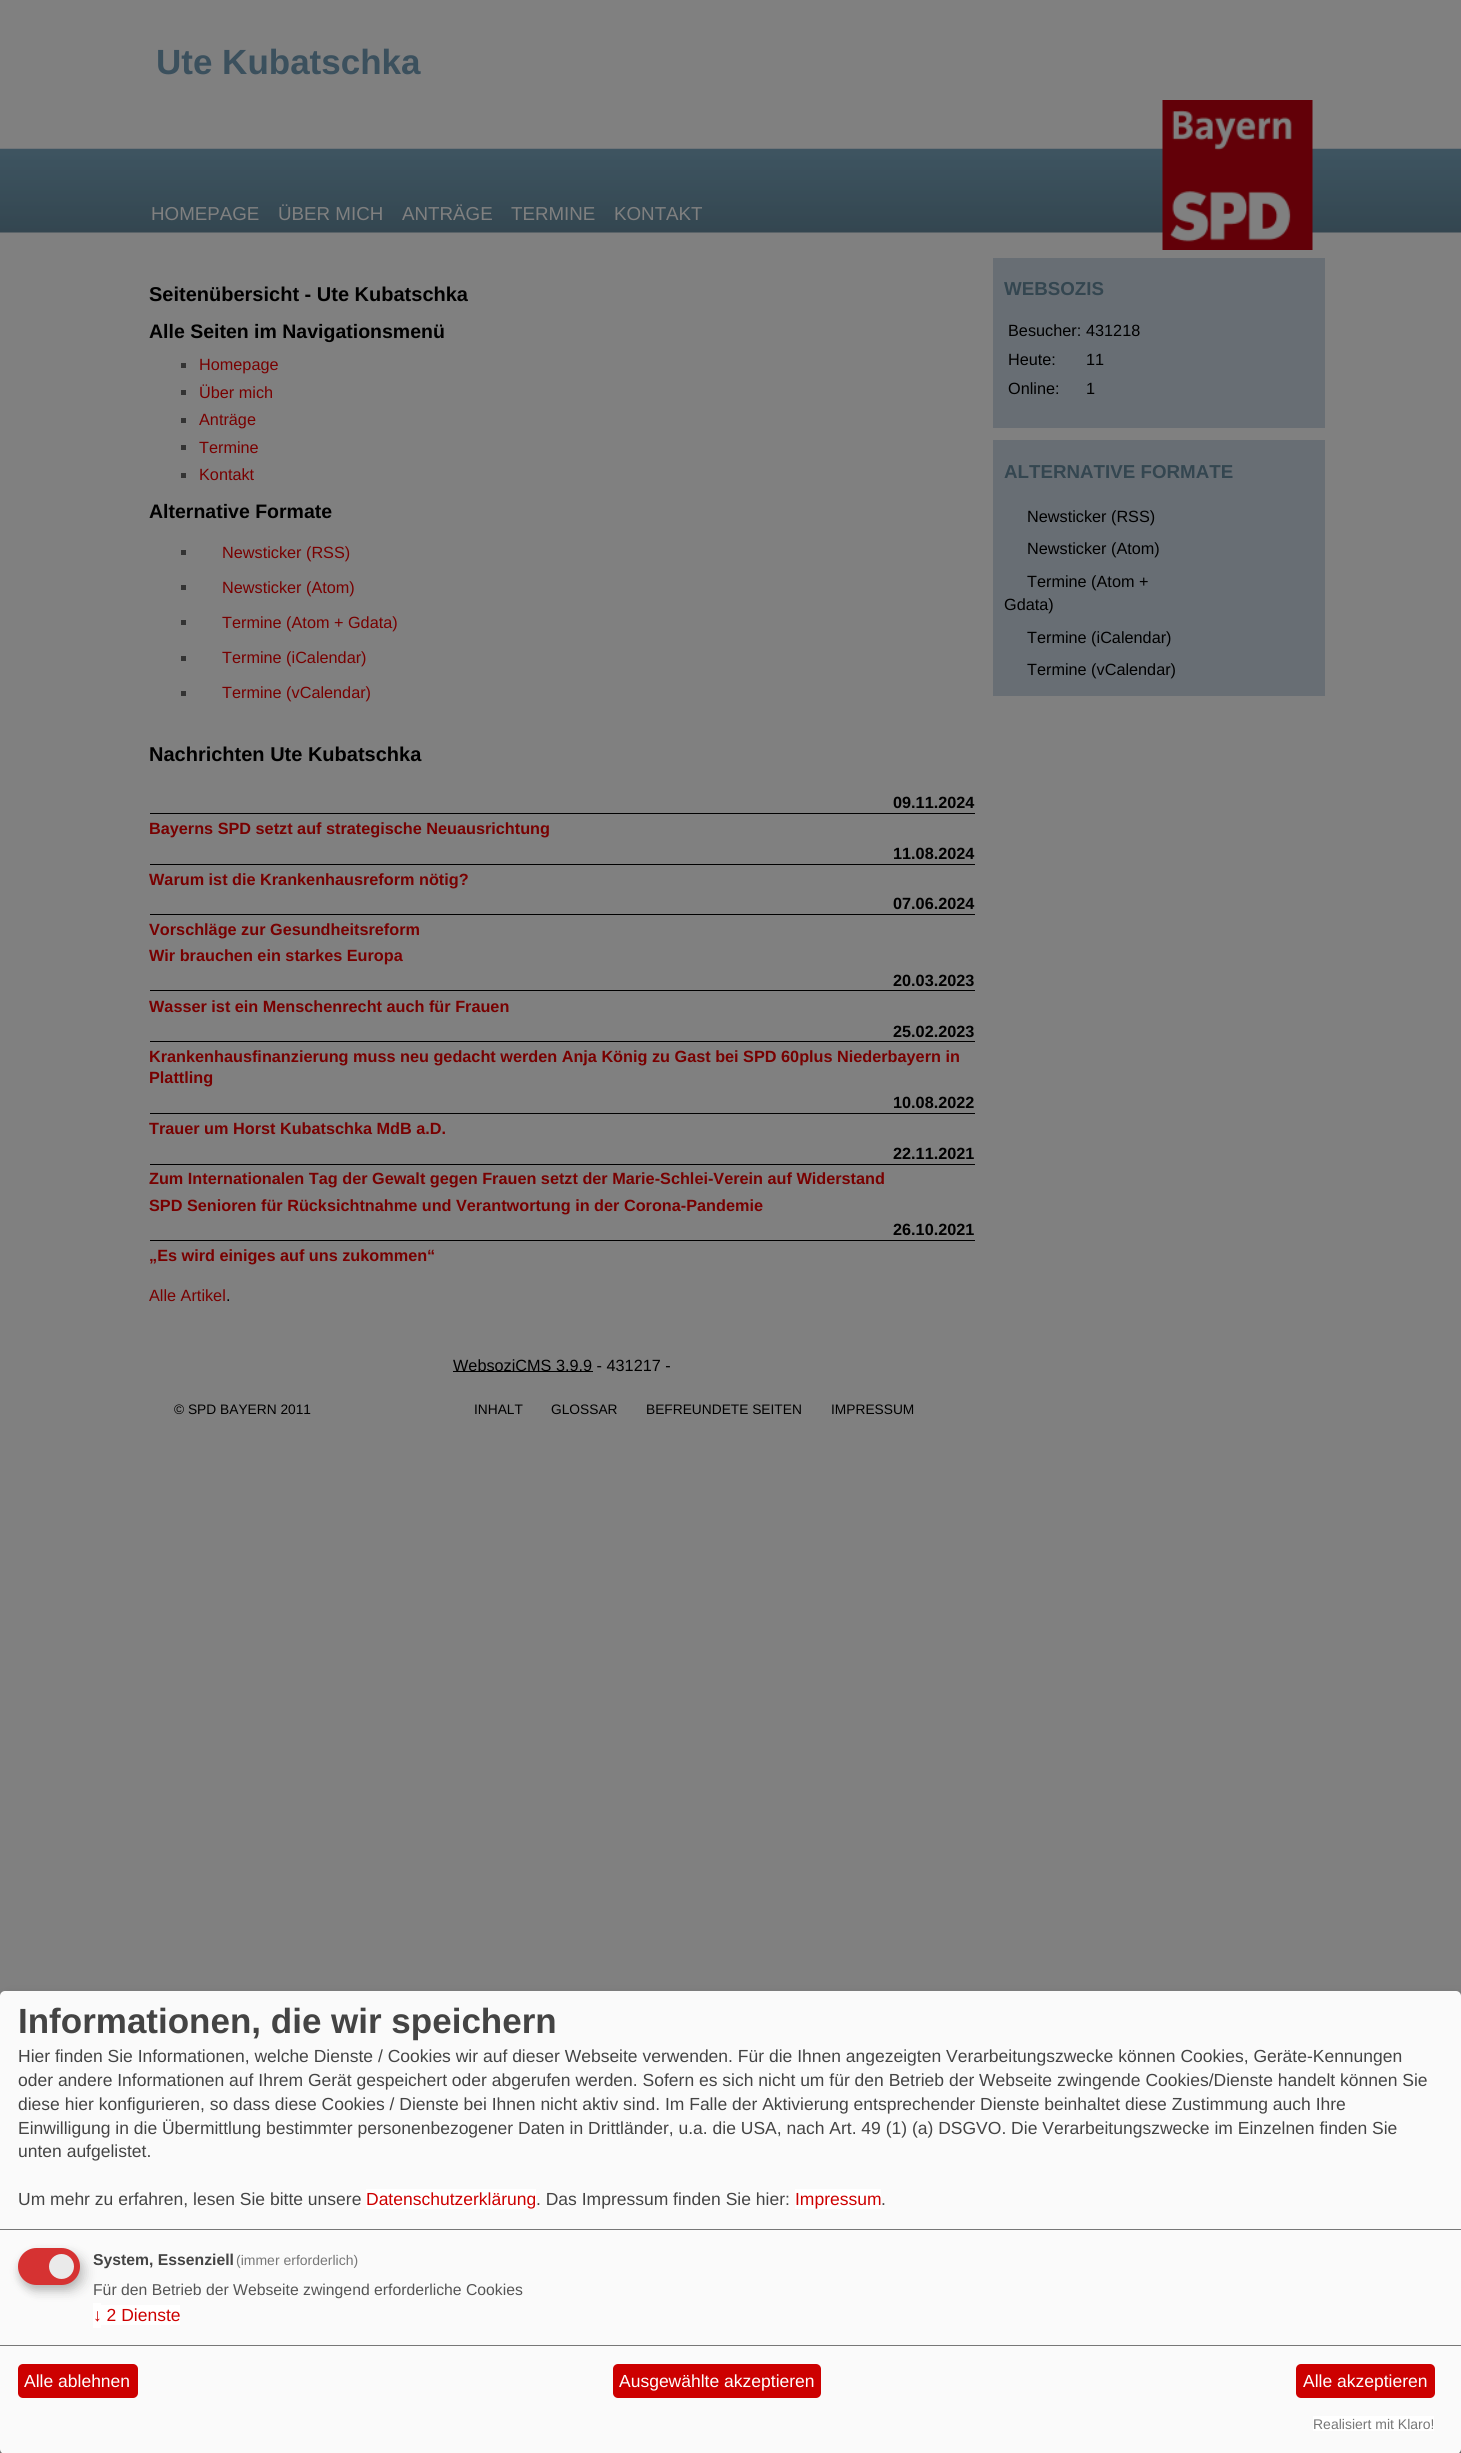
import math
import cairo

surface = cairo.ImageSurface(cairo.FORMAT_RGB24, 1461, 2453)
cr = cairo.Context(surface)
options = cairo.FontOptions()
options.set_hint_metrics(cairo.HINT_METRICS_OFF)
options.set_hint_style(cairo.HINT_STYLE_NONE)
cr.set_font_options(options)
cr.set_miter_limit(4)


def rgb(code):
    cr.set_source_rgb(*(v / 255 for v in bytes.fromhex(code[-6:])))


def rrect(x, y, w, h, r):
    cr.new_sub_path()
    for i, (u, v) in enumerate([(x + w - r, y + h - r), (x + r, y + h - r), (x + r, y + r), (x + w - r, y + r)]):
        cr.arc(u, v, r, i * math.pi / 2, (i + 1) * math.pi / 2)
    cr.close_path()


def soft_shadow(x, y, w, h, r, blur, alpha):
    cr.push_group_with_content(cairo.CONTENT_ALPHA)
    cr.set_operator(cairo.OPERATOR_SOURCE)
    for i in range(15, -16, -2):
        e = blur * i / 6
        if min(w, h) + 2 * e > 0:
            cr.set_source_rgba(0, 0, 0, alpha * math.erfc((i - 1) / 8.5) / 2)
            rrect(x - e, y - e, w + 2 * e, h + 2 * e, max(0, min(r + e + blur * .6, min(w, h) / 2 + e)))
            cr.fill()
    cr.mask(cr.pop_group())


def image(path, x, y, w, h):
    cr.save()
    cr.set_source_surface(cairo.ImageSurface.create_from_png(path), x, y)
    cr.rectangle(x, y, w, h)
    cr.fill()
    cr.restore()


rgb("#808080")
cr.paint()
image("img/1.png", 0, 148, 1461, 85)
image("img/2.png", 1162, 100, 151, 150)
for x, y, w, h, color in [
    (181, 363, 5, 5, "#333333"),
    (181, 390, 5, 5, "#333333"),
    (181, 418, 5, 5, "#333333"),
    (181, 445, 5, 5, "#333333"),
    (181, 473, 5, 5, "#333333"),
    (181, 550, 5, 5, "#333333"),
    (181, 585, 5, 5, "#333333"),
    (181, 620, 5, 5, "#333333"),
    (181, 656, 5, 5, "#333333"),
    (181, 691, 5, 5, "#333333"),
    (150, 813, 825, 1, "#000000"),
    (150, 864, 825, 1, "#000000"),
    (150, 914, 825, 1, "#000000"),
    (150, 990, 825, 1, "#000000"),
    (150, 1041, 825, 1, "#000000"),
    (150, 1113, 825, 1, "#000000"),
    (150, 1164, 825, 1, "#000000"),
    (150, 1240, 825, 1, "#000000"),
    (453, 1371, 140, 1, "#000000"),
    (993, 258, 332, 170, "#686e74"),
    (993, 440, 332, 256, "#686e74"),
]:
    rgb(color)
    cr.rectangle(x, y, w, h)
    cr.fill()
rgb("#000000")
soft_shadow(6, 1998, 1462, 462, 5, 6, 0.19)
soft_shadow(0, 1996, 1461, 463, 5, 4, 0.2)
rgb("#fafafa")
rrect(0, 1991, 1461, 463, 5)
cr.fill()
for x, y, w, h, color in [
    (0, 2229, 1461, 1, "#777777"),
    (366, 2189, 170, 20, "#ffffff"),
    (795, 2189, 86, 20, "#ffffff"),
    (93, 2303, 8, 25, "#ffffff"),
    (101, 2305, 79, 20, "#ffffff"),
]:
    rgb(color)
    cr.rectangle(x, y, w, h)
    cr.fill()
rgb("#000000")
soft_shadow(24, 2254, 62, 37, 18.5, 6, 0.15)
rgb("#323232")
soft_shadow(18, 2253, 62, 37, 18.5, 4, 0.2)
rgb("#d63232")
rrect(18, 2248, 62, 37, 18.5)
cr.fill()
rgb("#eaeaea")
cr.arc(61.5, 2266.5, 12.5, 0, 2 * math.pi)
cr.fill()
rgb("#777777")
cr.rectangle(0, 2345, 1461, 1)
cr.fill()
rgb("#cd0000")
rrect(18, 2364, 120, 34, 5)
cr.fill()
rrect(613, 2364, 208, 34, 5)
cr.fill()
rrect(1296, 2364, 139, 34, 5)
cr.fill()
rgb("#ffffff")
cr.rectangle(1313, 2416, 121, 15)
cr.fill()
cr.select_font_face("Liberation Sans", cairo.FONT_SLANT_NORMAL, cairo.FONT_WEIGHT_BOLD)
cr.set_font_size(35)
rgb("#3b505d")
cr.move_to(156, 74)
cr.show_text("Ute Kubatschka")
cr.select_font_face("Liberation Sans")
cr.set_font_size(18.75)
rgb("#808080")
for x, y, s in [
    (151, 220, "HOMEPAGE"),
    (278, 220, "ÜBER MICH"),
    (402, 220, "ANTRÄGE"),
    (511, 220, "TERMINE"),
    (614, 220, "KONTAKT"),
]:
    cr.move_to(x, y)
    cr.show_text(s)
cr.select_font_face("Liberation Sans", cairo.FONT_SLANT_NORMAL, cairo.FONT_WEIGHT_BOLD)
cr.set_font_size(20)
rgb("#000000")
cr.move_to(149, 301)
cr.show_text("Seitenübersicht - Ute Kubatschka")
cr.set_font_size(19.5)
cr.move_to(149, 338)
cr.show_text("Alle Seiten im Navigationsmenü")
cr.select_font_face("Liberation Sans")
cr.set_font_size(16.25)
rgb("#780000")
for x, y, s in [
    (199, 370, "Homepage"),
    (199, 398, "Über mich"),
    (199, 425, "Anträge"),
    (199, 453, "Termine"),
    (199, 480, "Kontakt"),
]:
    cr.move_to(x, y)
    cr.show_text(s)
cr.select_font_face("Liberation Sans", cairo.FONT_SLANT_NORMAL, cairo.FONT_WEIGHT_BOLD)
cr.set_font_size(19.5)
rgb("#000000")
cr.move_to(149, 518)
cr.show_text("Alternative Formate")
cr.select_font_face("Liberation Sans")
cr.set_font_size(16.25)
rgb("#780000")
for x, y, s in [
    (222, 558, "Newsticker (RSS)"),
    (222, 593, "Newsticker (Atom)"),
    (222, 628, "Termine (Atom + Gdata)"),
    (222, 663, "Termine (iCalendar)"),
    (222, 698, "Termine (vCalendar)"),
]:
    cr.move_to(x, y)
    cr.show_text(s)
cr.select_font_face("Liberation Sans", cairo.FONT_SLANT_NORMAL, cairo.FONT_WEIGHT_BOLD)
cr.set_font_size(20)
rgb("#000000")
cr.move_to(149, 761)
cr.show_text("Nachrichten Ute Kubatschka")
cr.set_font_size(16.25)
cr.move_to(893, 808)
cr.show_text("09.11.2024")
rgb("#780000")
cr.move_to(149, 834)
cr.show_text("Bayerns SPD setzt auf strategische Neuausrichtung")
rgb("#000000")
cr.move_to(893, 859)
cr.show_text("11.08.2024")
rgb("#780000")
cr.move_to(149, 885)
cr.show_text("Warum ist die Krankenhausreform nötig?")
rgb("#000000")
cr.move_to(893, 909)
cr.show_text("07.06.2024")
rgb("#780000")
cr.move_to(149, 935)
cr.show_text("Vorschläge zur Gesundheitsreform")
cr.move_to(149, 961)
cr.show_text("Wir brauchen ein starkes Europa")
rgb("#000000")
cr.move_to(893, 986)
cr.show_text("20.03.2023")
rgb("#780000")
cr.move_to(149, 1012)
cr.show_text("Wasser ist ein Menschenrecht auch für Frauen")
rgb("#000000")
cr.move_to(893, 1037)
cr.show_text("25.02.2023")
rgb("#780000")
cr.move_to(149, 1062)
cr.show_text("Krankenhausfinanzierung muss neu gedacht werden Anja König zu Gast bei SPD 60plus Niederbayern in")
cr.move_to(149, 1083)
cr.show_text("Plattling")
rgb("#000000")
cr.move_to(893, 1108)
cr.show_text("10.08.2022")
rgb("#780000")
cr.move_to(149, 1134)
cr.show_text("Trauer um Horst Kubatschka MdB a.D.")
rgb("#000000")
cr.move_to(893, 1159)
cr.show_text("22.11.2021")
rgb("#780000")
cr.move_to(149, 1184)
cr.show_text("Zum Internationalen Tag der Gewalt gegen Frauen setzt der Marie-Schlei-Verein auf Widerstand")
cr.move_to(149, 1211)
cr.show_text("SPD Senioren für Rücksichtnahme und Verantwortung in der Corona-Pandemie")
rgb("#000000")
cr.move_to(893, 1235)
cr.show_text("26.10.2021")
rgb("#780000")
cr.move_to(149, 1261)
cr.show_text("„Es wird einiges auf uns zukommen“")
cr.select_font_face("Liberation Sans")
cr.move_to(149, 1301)
cr.show_text("Alle Artikel")
rgb("#000000")
cr.move_to(226, 1301)
cr.show_text(".")
cr.move_to(453, 1371)
cr.show_text("WebsoziCMS 3.9.9 - 431217 -")
cr.set_font_size(13.75)
for x, y, s in [
    (174, 1414, "© SPD BAYERN 2011"),
    (474, 1414, "INHALT"),
    (551, 1414, "GLOSSAR"),
    (646, 1414, "BEFREUNDETE SEITEN"),
    (831, 1414, "IMPRESSUM"),
]:
    cr.move_to(x, y)
    cr.show_text(s)
cr.select_font_face("Liberation Sans", cairo.FONT_SLANT_NORMAL, cairo.FONT_WEIGHT_BOLD)
cr.set_font_size(18.75)
rgb("#344650")
cr.move_to(1004, 295)
cr.show_text("WEBSOZIS")
cr.select_font_face("Liberation Sans")
cr.set_font_size(16.25)
rgb("#000000")
for x, y, s in [
    (1008, 336, "Besucher:"),
    (1086, 336, "431218"),
    (1008, 365, "Heute:"),
    (1086, 365, "11"),
    (1008, 394, "Online:"),
    (1086, 394, "1"),
]:
    cr.move_to(x, y)
    cr.show_text(s)
cr.select_font_face("Liberation Sans", cairo.FONT_SLANT_NORMAL, cairo.FONT_WEIGHT_BOLD)
cr.set_font_size(18.75)
rgb("#344650")
cr.move_to(1004, 478)
cr.show_text("ALTERNATIVE FORMATE")
cr.select_font_face("Liberation Sans")
cr.set_font_size(16.25)
rgb("#000000")
for x, y, s in [
    (1027, 522, "Newsticker (RSS)"),
    (1027, 554, "Newsticker (Atom)"),
    (1027, 587, "Termine (Atom +"),
    (1004, 610, "Gdata)"),
    (1027, 643, "Termine (iCalendar)"),
    (1027, 675, "Termine (vCalendar)"),
]:
    cr.move_to(x, y)
    cr.show_text(s)
cr.select_font_face("Liberation Sans", cairo.FONT_SLANT_NORMAL, cairo.FONT_WEIGHT_BOLD)
cr.set_font_size(35)
rgb("#444444")
cr.move_to(18, 2033)
cr.show_text("Informationen, die wir speichern")
cr.select_font_face("Liberation Sans")
cr.set_font_size(17.5)
for x, y, s in [
    (18, 2062, "Hier finden Sie Informationen, welche Dienste / Cookies wir auf dieser Webseite verwenden. Für die Ihnen angezeigten Verarbeitungszwecke können Cookies, Geräte-Kennungen"),
    (18, 2086, "oder andere Informationen auf Ihrem Gerät gespeichert oder abgerufen werden. Sofern es sich nicht um für den Betrieb der Webseite zwingende Cookies/Dienste handelt können Sie"),
    (18, 2110, "diese hier konfigurieren, so dass diese Cookies / Dienste bei Ihnen nicht aktiv sind. Im Falle der Aktivierung entsprechender Dienste beinhaltet diese Zustimmung auch Ihre"),
    (18, 2134, "Einwilligung in die Übermittlung bestimmter personenbezogener Daten in Drittländer, u.a. die USA, nach Art. 49 (1) (a) DSGVO. Die Verarbeitungszwecke im Einzelnen finden Sie"),
    (18, 2157, "unten aufgelistet."),
    (18, 2205, "Um mehr zu erfahren, lesen Sie bitte unsere"),
]:
    cr.move_to(x, y)
    cr.show_text(s)
rgb("#cd0000")
cr.move_to(366, 2205)
cr.show_text("Datenschutzerklärung")
rgb("#444444")
cr.move_to(536, 2205)
cr.show_text(". Das Impressum finden Sie hier:")
rgb("#cd0000")
cr.move_to(795, 2205)
cr.show_text("Impressum")
rgb("#444444")
cr.move_to(881, 2205)
cr.show_text(".")
cr.select_font_face("Liberation Sans", cairo.FONT_SLANT_NORMAL, cairo.FONT_WEIGHT_BOLD)
cr.set_font_size(15.75)
cr.move_to(93, 2265)
cr.show_text("System, Essenziell")
cr.select_font_face("Liberation Sans")
cr.set_font_size(14)
rgb("#777777")
cr.move_to(236, 2265)
cr.show_text("(immer erforderlich)")
cr.set_font_size(15.75)
rgb("#555555")
cr.move_to(93, 2295)
cr.show_text("Für den Betrieb der Webseite zwingend erforderliche Cookies")
cr.set_font_size(17.5)
rgb("#cd0000")
cr.move_to(93, 2321)
cr.show_text("↓ 2 Dienste")
rgb("#ffffff")
for x, y, s in [
    (24, 2387, "Alle ablehnen"),
    (619, 2387, "Ausgewählte akzeptieren"),
    (1303, 2387, "Alle akzeptieren"),
]:
    cr.move_to(x, y)
    cr.show_text(s)
cr.set_font_size(14)
rgb("#777777")
cr.move_to(1313, 2429)
cr.show_text("Realisiert mit Klaro!")
surface.write_to_png("page.png")
